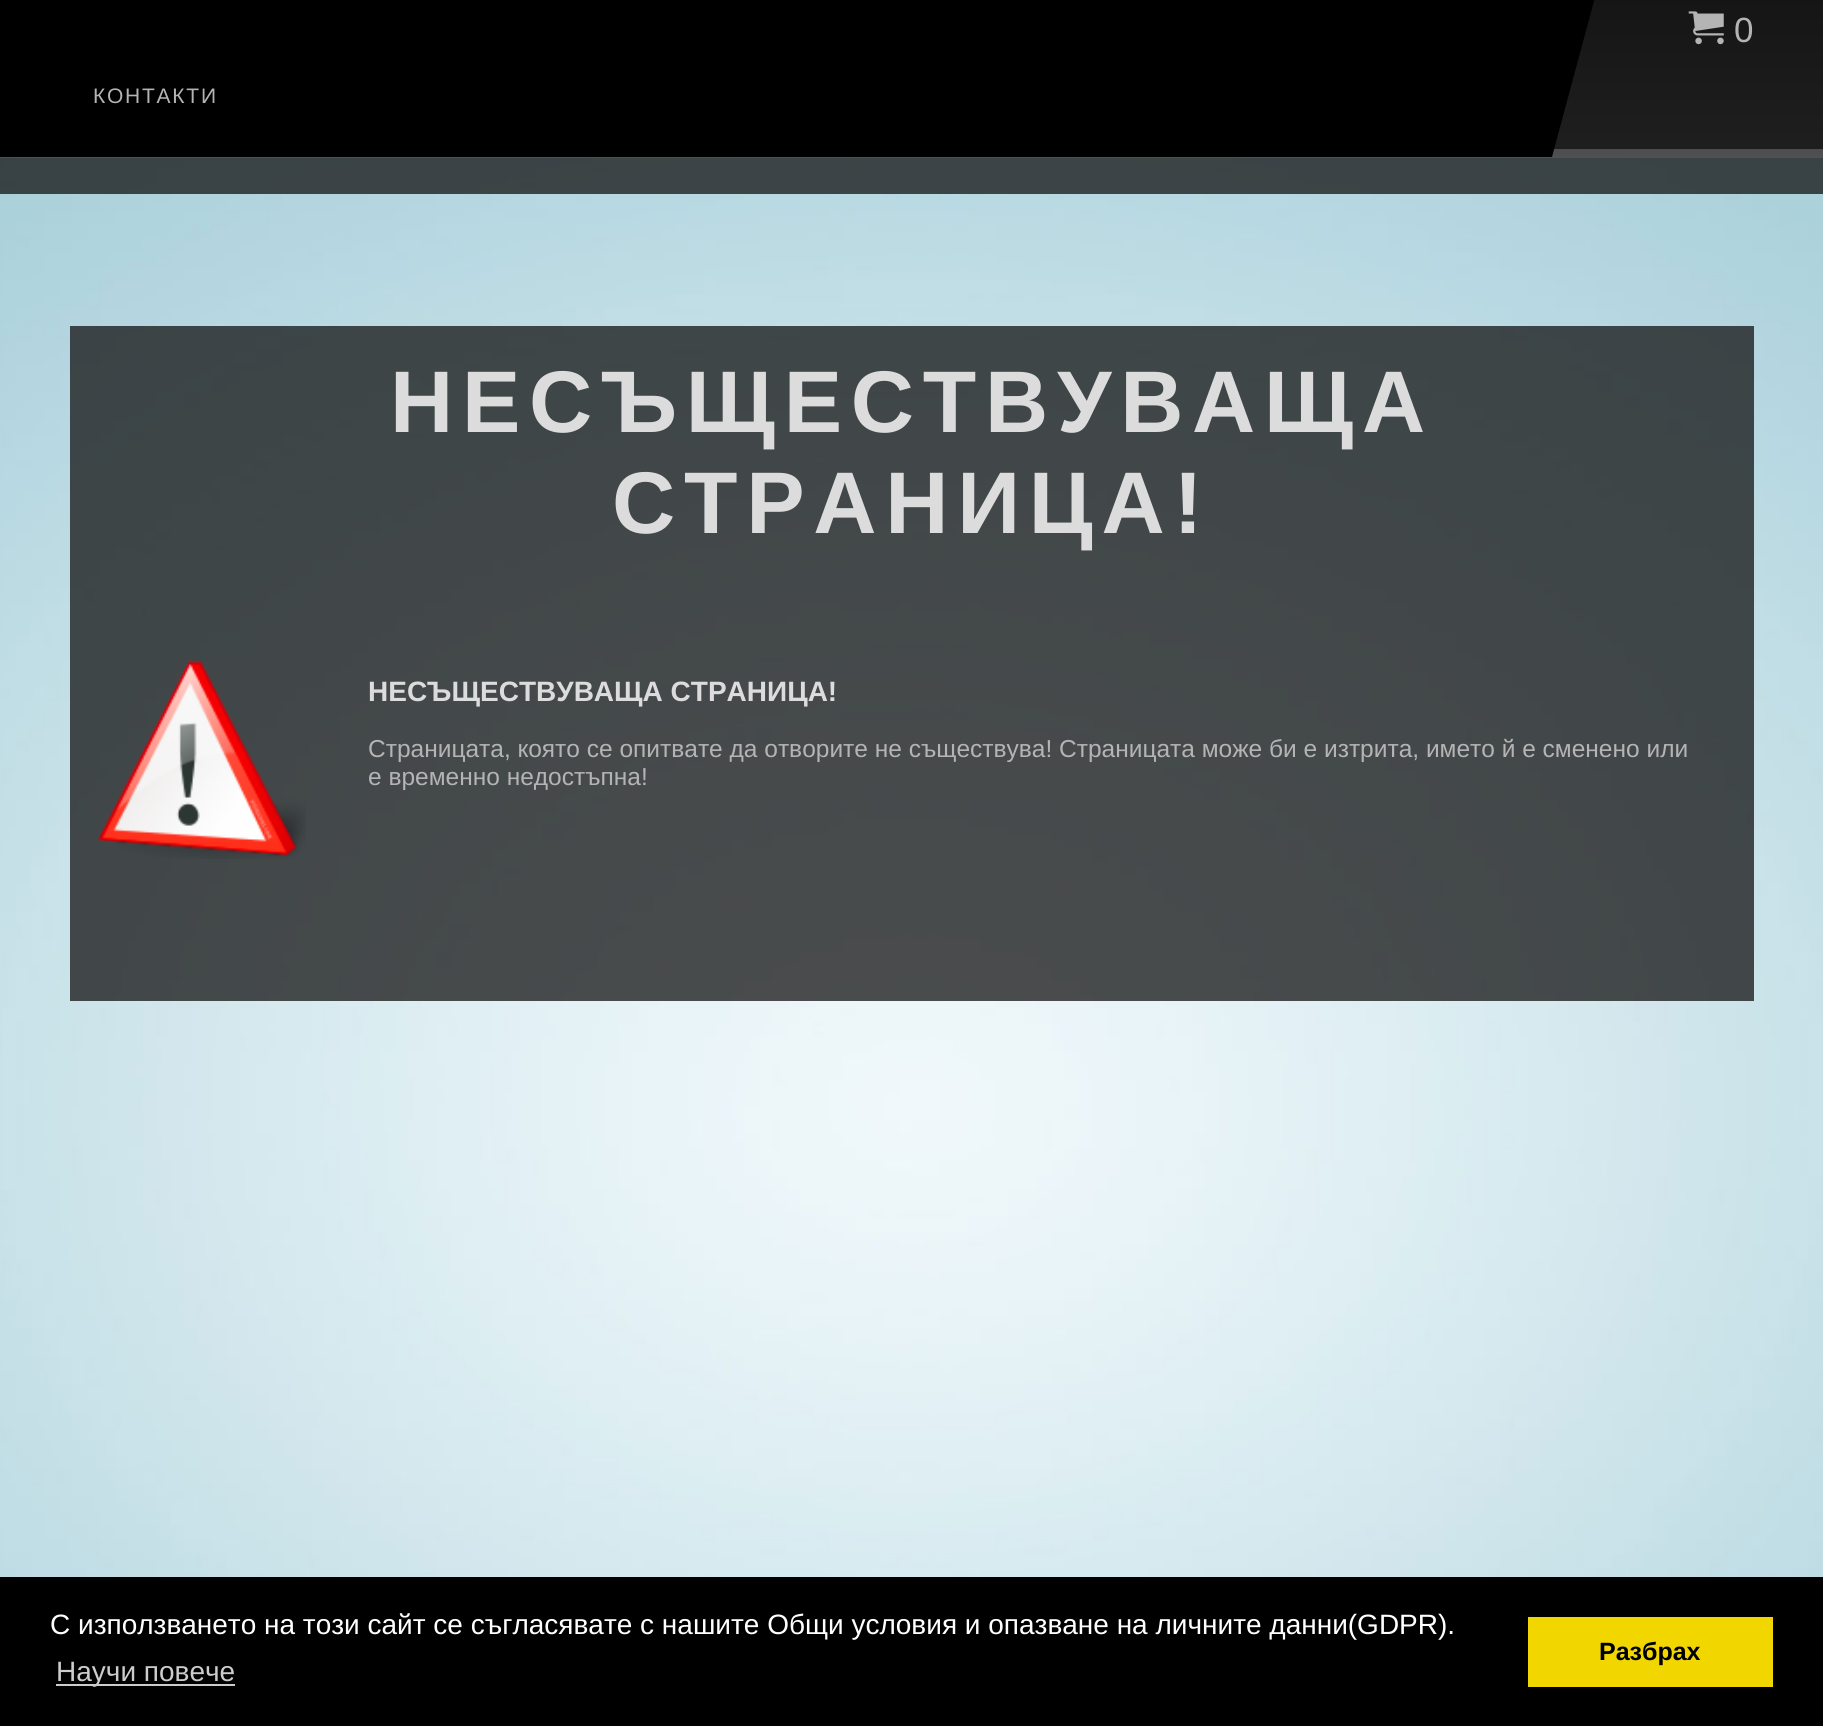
import math
import cairo

surface = cairo.ImageSurface(cairo.FORMAT_RGB24, 1823, 1726)
cr = cairo.Context(surface)
options = cairo.FontOptions()
options.set_hint_metrics(cairo.HINT_METRICS_OFF)
options.set_hint_style(cairo.HINT_STYLE_NONE)
cr.set_font_options(options)
cr.set_miter_limit(4)


def rgb(code):
    cr.set_source_rgb(*(v / 255 for v in bytes.fromhex(code[-6:])))


def tracked(x, y, s, letter, word):
    cr.move_to(x, y)
    for ch in s:
        cr.show_text(ch)
        cr.rel_move_to(letter + word * (ch == ' '), 0)


def image(path, x, y, w, h):
    cr.save()
    cr.set_source_surface(cairo.ImageSurface.create_from_png(path), x, y)
    cr.rectangle(x, y, w, h)
    cr.fill()
    cr.restore()


rgb("#ffffff")
cr.paint()
image("img/1.png", 0, 158, 1823, 1419)
cr.set_source_rgba(0.078, 0.078, 0.078, 0.75)
cr.rectangle(0, 158, 1823, 36)
cr.fill()
gradient = cairo.LinearGradient(912, -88, 912, 158)
gradient.add_color_stop_rgba(0, 0, 0, 0, 1)
gradient.add_color_stop_rgba(0.47, 0.157, 0.157, 0.157, 1)
gradient.add_color_stop_rgba(1, 0.314, 0.314, 0.314, 1)
cr.set_source(gradient)
cr.rectangle(0, 0, 1823, 158)
cr.fill()
cr.set_source_rgba(0.078, 0.078, 0.078, 0.8)
cr.rectangle(1554, 0, 269, 149)
cr.fill()
image("img/2.png", 1688, 11, 36, 34)
rgb("#000000")
cr.new_path()
cr.move_to(-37, -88)
cr.line_to(1618, -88)
cr.line_to(1552, 157)
cr.line_to(-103, 157)
cr.close_path()
cr.fill()
cr.set_source_rgba(0.078, 0.078, 0.078, 0.75)
cr.rectangle(70, 326, 1684, 675)
cr.fill()
image("img/3.png", 97, 660, 209, 199)
for x, y, w, h, color in [
    (0, 1577, 1823, 149, "#000000"),
    (56, 1684, 179, 2, "#cccccc"),
    (1528, 1617, 245, 70, "#f1d600"),
]:
    rgb(color)
    cr.rectangle(x, y, w, h)
    cr.fill()
cr.select_font_face("Liberation Sans")
cr.set_font_size(35)
rgb("#b4b4b4")
cr.move_to(1734, 42)
cr.show_text("0")
cr.set_font_size(21)
tracked(93, 103, "КОНТАКТИ", 1.75, 0)
cr.select_font_face("Liberation Sans", cairo.FONT_SLANT_NORMAL, cairo.FONT_WEIGHT_BOLD)
cr.set_font_size(87.5)
rgb("#dcdcdc")
tracked(390, 432, "НЕСЪЩЕСТВУВАЩА", 8.75, 0)
tracked(612, 533, "СТРАНИЦА!", 8.75, 0)
cr.set_font_size(28)
cr.move_to(368, 701)
cr.show_text("НЕСЪЩЕСТВУВАЩА СТРАНИЦА!")
cr.select_font_face("Liberation Sans")
cr.set_font_size(24.5)
rgb("#b4b4b4")
cr.move_to(368, 757)
cr.show_text("Страницата, която се опитвате да отворите не съществува! Страницата може би е изтрита, името й е сменено или")
cr.move_to(368, 785)
cr.show_text("е временно недостъпна!")
cr.set_font_size(28)
rgb("#ffffff")
cr.move_to(50, 1634)
cr.show_text("С използването на този сайт се съгласявате с нашите Общи условия и опазване на личните данни(GDPR).")
rgb("#cccccc")
cr.move_to(56, 1681)
cr.show_text("Научи повече")
cr.select_font_face("Liberation Sans", cairo.FONT_SLANT_NORMAL, cairo.FONT_WEIGHT_BOLD)
cr.set_font_size(25)
rgb("#000000")
cr.move_to(1599, 1660)
cr.show_text("Разбрах")
surface.write_to_png("page.png")
